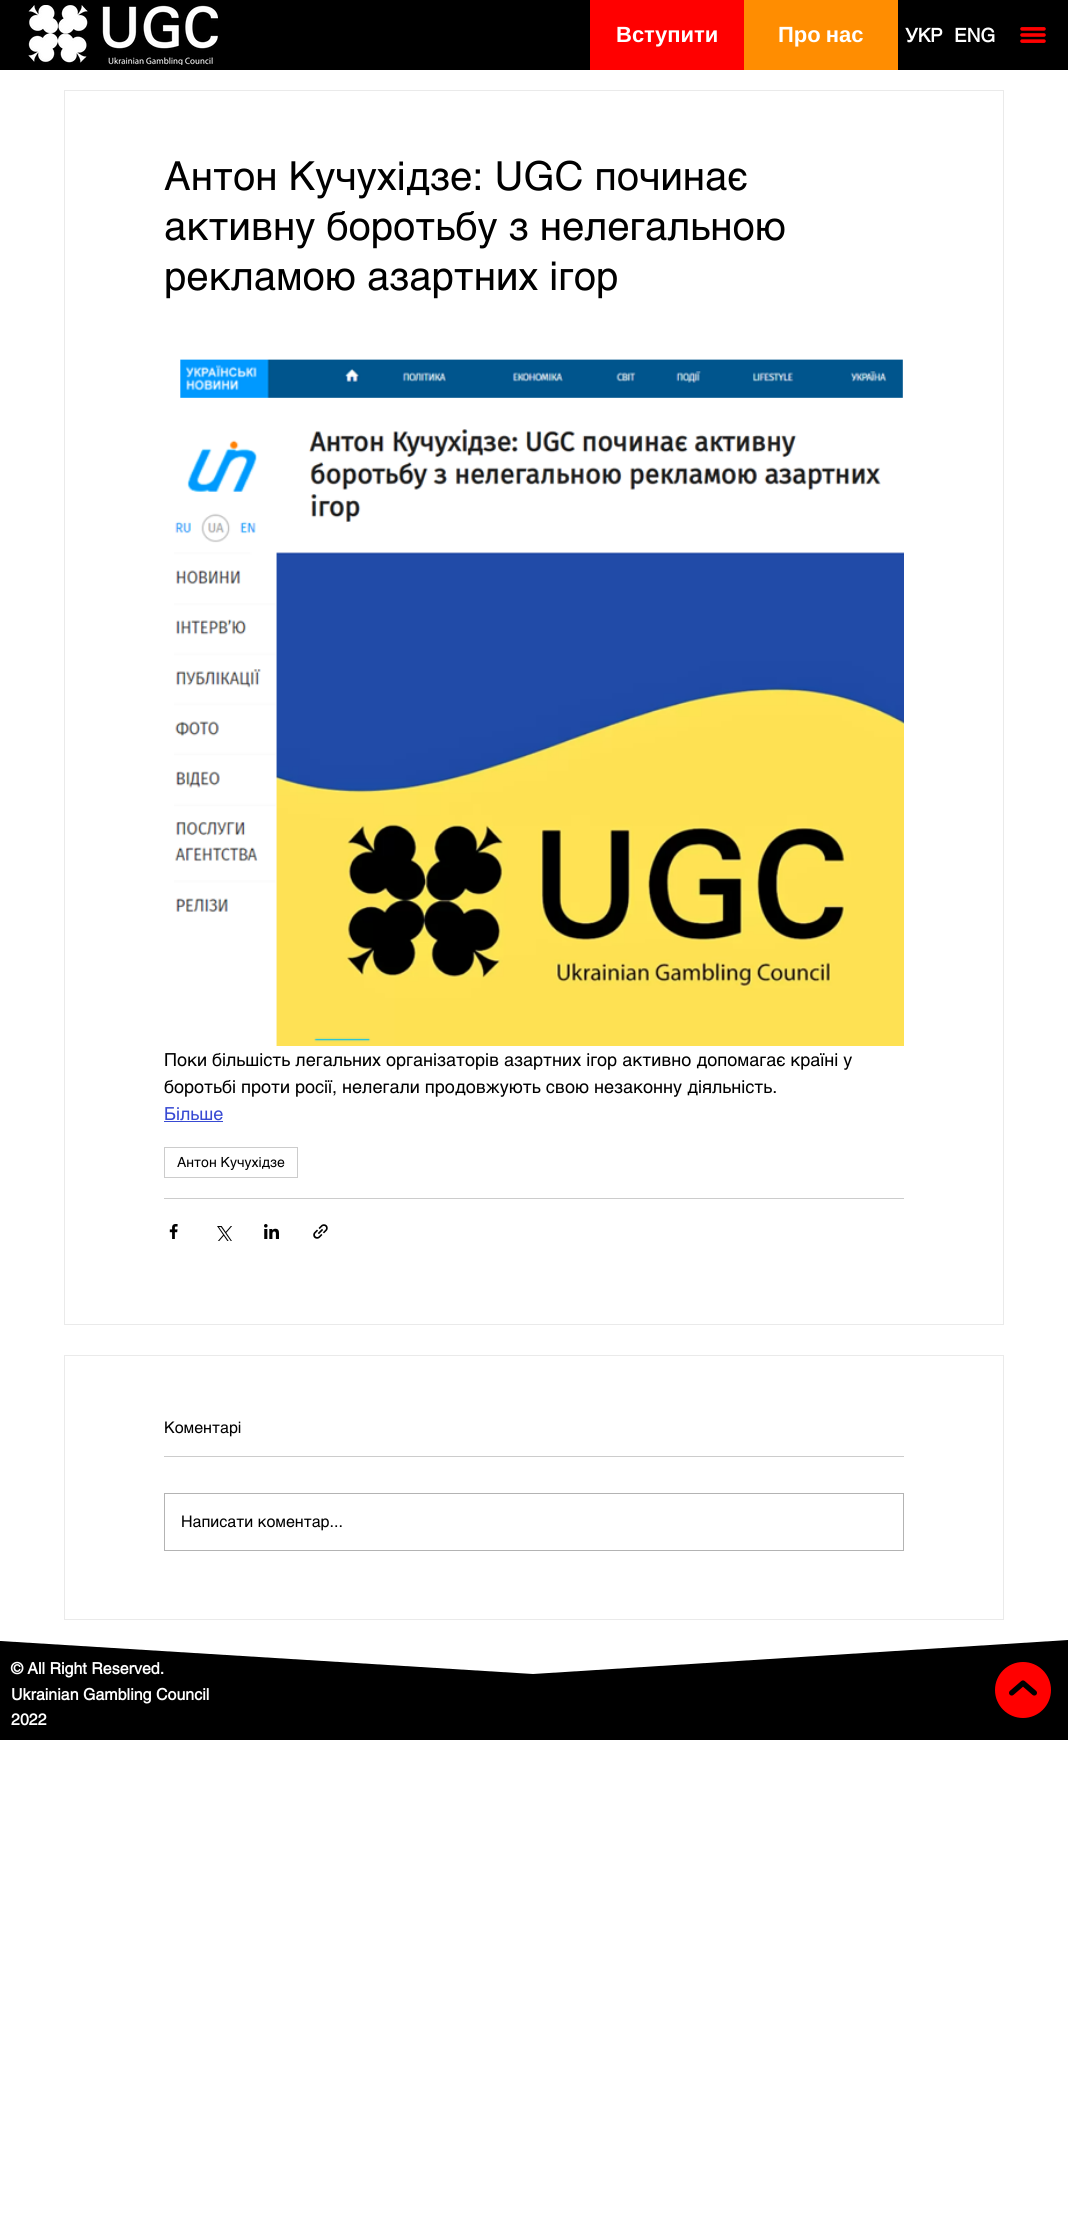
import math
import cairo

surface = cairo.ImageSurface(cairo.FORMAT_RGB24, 1068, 2239)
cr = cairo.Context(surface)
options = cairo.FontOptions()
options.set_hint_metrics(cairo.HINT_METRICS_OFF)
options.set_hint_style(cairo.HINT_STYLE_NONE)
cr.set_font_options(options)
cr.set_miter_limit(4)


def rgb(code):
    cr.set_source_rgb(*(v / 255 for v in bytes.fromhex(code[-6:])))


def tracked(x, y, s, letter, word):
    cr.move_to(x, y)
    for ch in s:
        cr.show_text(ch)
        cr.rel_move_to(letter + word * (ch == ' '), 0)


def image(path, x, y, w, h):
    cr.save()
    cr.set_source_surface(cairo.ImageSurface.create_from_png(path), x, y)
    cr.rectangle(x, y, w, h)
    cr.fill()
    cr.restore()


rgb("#ffffff")
cr.paint()
rgb("#000000")
cr.rectangle(0, 0, 1068, 70)
cr.fill()
image("img/1.png", 28, 5, 190, 60)
rgb("#ff0000")
cr.rectangle(590, 0, 154, 70)
cr.fill()
rgb("#ff8d01")
cr.rectangle(744, 0, 154, 70)
cr.fill()
image("img/2.png", 1020, 27, 26, 16)
cr.rectangle(64.5, 90.5, 939, 1234)
rgb("#eaeaea")
cr.set_line_width(1)
cr.stroke()
image("img/3.png", 174, 359, 730, 687)
rgb("#384ad3")
cr.rectangle(164, 1121, 59, 1)
cr.fill()
cr.rectangle(164.5, 1147.5, 133, 30)
rgb("#cccccc")
cr.stroke()
cr.rectangle(164, 1198, 740, 1)
cr.fill()
image("img/4.png", 169, 1224, 9, 15)
image("img/5.png", 217, 1226, 15, 15)
image("img/6.png", 264, 1224, 15, 15)
image("img/7.png", 313, 1224, 15, 15)
cr.rectangle(64.5, 1355.5, 939, 264)
rgb("#eaeaea")
cr.stroke()
rgb("#cccccc")
cr.rectangle(164, 1456, 740, 1)
cr.fill()
cr.rectangle(164.5, 1493.5, 739, 57)
rgb("#b3b3b3")
cr.stroke()
rgb("#000000")
cr.new_path()
cr.move_to(0, 1740)
cr.line_to(1068, 1740)
cr.line_to(1068, 1640)
cr.line_to(533, 1674)
cr.line_to(0, 1641)
cr.close_path()
cr.fill()
image("img/8.png", 995, 1662, 56, 56)
cr.select_font_face("Liberation Sans", cairo.FONT_SLANT_NORMAL, cairo.FONT_WEIGHT_BOLD)
cr.set_font_size(22)
rgb("#ffffff")
cr.move_to(616, 42)
cr.show_text("Вступити")
tracked(778, 42, "Про нас", 0, -1)
cr.select_font_face("helvetica", cairo.FONT_SLANT_NORMAL, cairo.FONT_WEIGHT_BOLD)
cr.set_font_size(19)
cr.move_to(905, 42)
cr.show_text("УКР")
cr.move_to(954, 42)
cr.show_text("ENG")
cr.select_font_face("helvetica")
cr.set_font_size(40)
rgb("#000000")
for x, y, s in [
    (164, 190, "Антон Кучухідзе: UGC починає"),
    (164, 240, "активну боротьбу з нелегальною"),
    (164, 290, "рекламою азартних ігор"),
]:
    cr.move_to(x, y)
    cr.show_text(s)
cr.set_font_size(18)
cr.move_to(164, 1066)
cr.show_text("Поки більшість легальних організаторів азартних ігор активно допомагає країні у")
cr.move_to(164, 1093)
cr.show_text("боротьбі проти росії, нелегали продовжують свою незаконну діяльність.")
rgb("#384ad3")
cr.move_to(164, 1120)
cr.show_text("Більше")
cr.set_font_size(14)
rgb("#000000")
cr.move_to(177, 1167)
cr.show_text("Антон Кучухідзе")
cr.set_font_size(16)
cr.move_to(164, 1433)
cr.show_text("Коментарі")
cr.move_to(181, 1527)
cr.show_text("Написати коментар...")
cr.select_font_face("helvetica", cairo.FONT_SLANT_NORMAL, cairo.FONT_WEIGHT_BOLD)
rgb("#ffffff")
for x, y, s in [
    (11, 1674, "© All Right Reserved."),
    (11, 1700, "Ukrainian Gambling Council"),
    (11, 1725, "2022"),
]:
    cr.move_to(x, y)
    cr.show_text(s)
surface.write_to_png("page.png")
